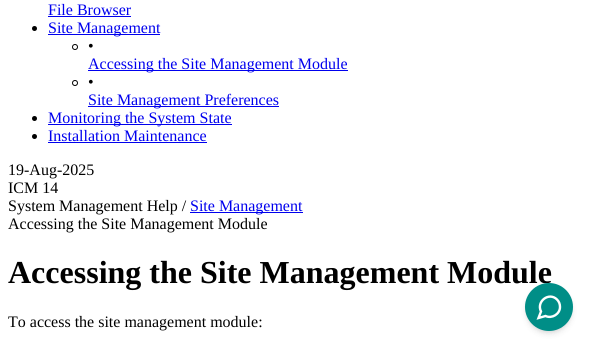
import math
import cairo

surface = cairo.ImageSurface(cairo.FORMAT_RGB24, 593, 351)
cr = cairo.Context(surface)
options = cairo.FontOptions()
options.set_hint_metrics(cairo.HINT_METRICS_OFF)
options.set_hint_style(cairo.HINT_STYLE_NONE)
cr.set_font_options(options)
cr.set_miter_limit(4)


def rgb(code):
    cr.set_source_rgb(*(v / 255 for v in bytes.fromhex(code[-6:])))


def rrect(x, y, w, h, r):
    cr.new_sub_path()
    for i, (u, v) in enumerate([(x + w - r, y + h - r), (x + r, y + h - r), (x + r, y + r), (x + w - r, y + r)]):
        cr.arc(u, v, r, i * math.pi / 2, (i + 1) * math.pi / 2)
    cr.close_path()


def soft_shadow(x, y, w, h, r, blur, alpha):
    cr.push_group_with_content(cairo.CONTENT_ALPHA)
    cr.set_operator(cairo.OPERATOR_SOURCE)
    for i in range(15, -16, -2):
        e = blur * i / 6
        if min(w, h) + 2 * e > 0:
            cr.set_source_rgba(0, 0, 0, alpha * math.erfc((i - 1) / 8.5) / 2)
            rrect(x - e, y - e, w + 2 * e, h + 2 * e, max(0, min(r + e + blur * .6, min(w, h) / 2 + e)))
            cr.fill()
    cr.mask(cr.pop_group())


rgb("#ffffff")
cr.paint()
rgb("#0000ee")
cr.rectangle(48, 16, 83, 1)
cr.fill()
rgb("#000000")
cr.arc(34.5, 28.5, 2.5, 0, 2 * math.pi)
cr.fill()
rgb("#0000ee")
cr.rectangle(48, 34, 112, 1)
cr.fill()
cr.arc(75, 47, 2.5, 0, 2 * math.pi)
rgb("#000000")
cr.set_line_width(1)
cr.stroke()
rgb("#0000ee")
cr.rectangle(88, 70, 260, 1)
cr.fill()
cr.arc(75, 83, 2.5, 0, 2 * math.pi)
rgb("#000000")
cr.stroke()
rgb("#0000ee")
cr.rectangle(88, 106, 191, 1)
cr.fill()
rgb("#000000")
cr.arc(34.5, 118.5, 2.5, 0, 2 * math.pi)
cr.fill()
rgb("#0000ee")
cr.rectangle(48, 124, 184, 1)
cr.fill()
rgb("#000000")
cr.arc(34.5, 136.5, 2.5, 0, 2 * math.pi)
cr.fill()
rgb("#0000ee")
cr.rectangle(48, 142, 159, 1)
cr.fill()
cr.rectangle(190, 212, 113, 1)
cr.fill()
rgb("#000000")
soft_shadow(527, 287, 44, 44, 22, 2, 0.1)
soft_shadow(526, 288, 46, 46, 23, 3, 0.1)
cr.select_font_face("Liberation Serif")
cr.set_font_size(16)
rgb("#0000ee")
cr.move_to(48, 15)
cr.show_text("File Browser")
cr.move_to(48, 33)
cr.show_text("Site Management")
rgb("#000000")
cr.move_to(88, 51)
cr.show_text("•")
rgb("#0000ee")
cr.move_to(88, 69)
cr.show_text("Accessing the Site Management Module")
rgb("#000000")
cr.move_to(88, 87)
cr.show_text("•")
rgb("#0000ee")
for x, y, s in [
    (88, 105, "Site Management Preferences"),
    (48, 123, "Monitoring the System State"),
    (48, 141, "Installation Maintenance"),
]:
    cr.move_to(x, y)
    cr.show_text(s)
rgb("#000000")
for x, y, s in [
    (8, 175, "19-Aug-2025"),
    (8, 193, "ICM 14"),
    (8, 211, "System Management Help /"),
]:
    cr.move_to(x, y)
    cr.show_text(s)
rgb("#0000ee")
cr.move_to(190, 211)
cr.show_text("Site Management")
rgb("#000000")
cr.move_to(8, 229)
cr.show_text("Accessing the Site Management Module")
cr.select_font_face("Liberation Serif", cairo.FONT_SLANT_NORMAL, cairo.FONT_WEIGHT_BOLD)
cr.set_font_size(32)
cr.move_to(8, 283)
cr.show_text("Accessing the Site Management Module")
cr.select_font_face("Liberation Serif")
cr.set_font_size(16)
cr.move_to(8, 327)
cr.show_text("To access the site management module:")
rgb("#008e87")
cr.new_path()
cr.arc(549, 307, 24, 0, 2 * math.pi)
cr.fill()
cr.new_path()
cr.move_to(560, 307)
cr.curve_to(560, 314, 552, 319, 545.5, 316)
cr.line_to(538.5, 318)
cr.line_to(541, 311.5)
cr.curve_to(536, 301.5, 549, 291.5, 557, 299.5)
cr.curve_to(559, 301.5, 560, 304, 560, 307)
cr.close_path()
rgb("#ffffff")
cr.set_line_width(2.4)
cr.stroke()
surface.write_to_png("page.png")
